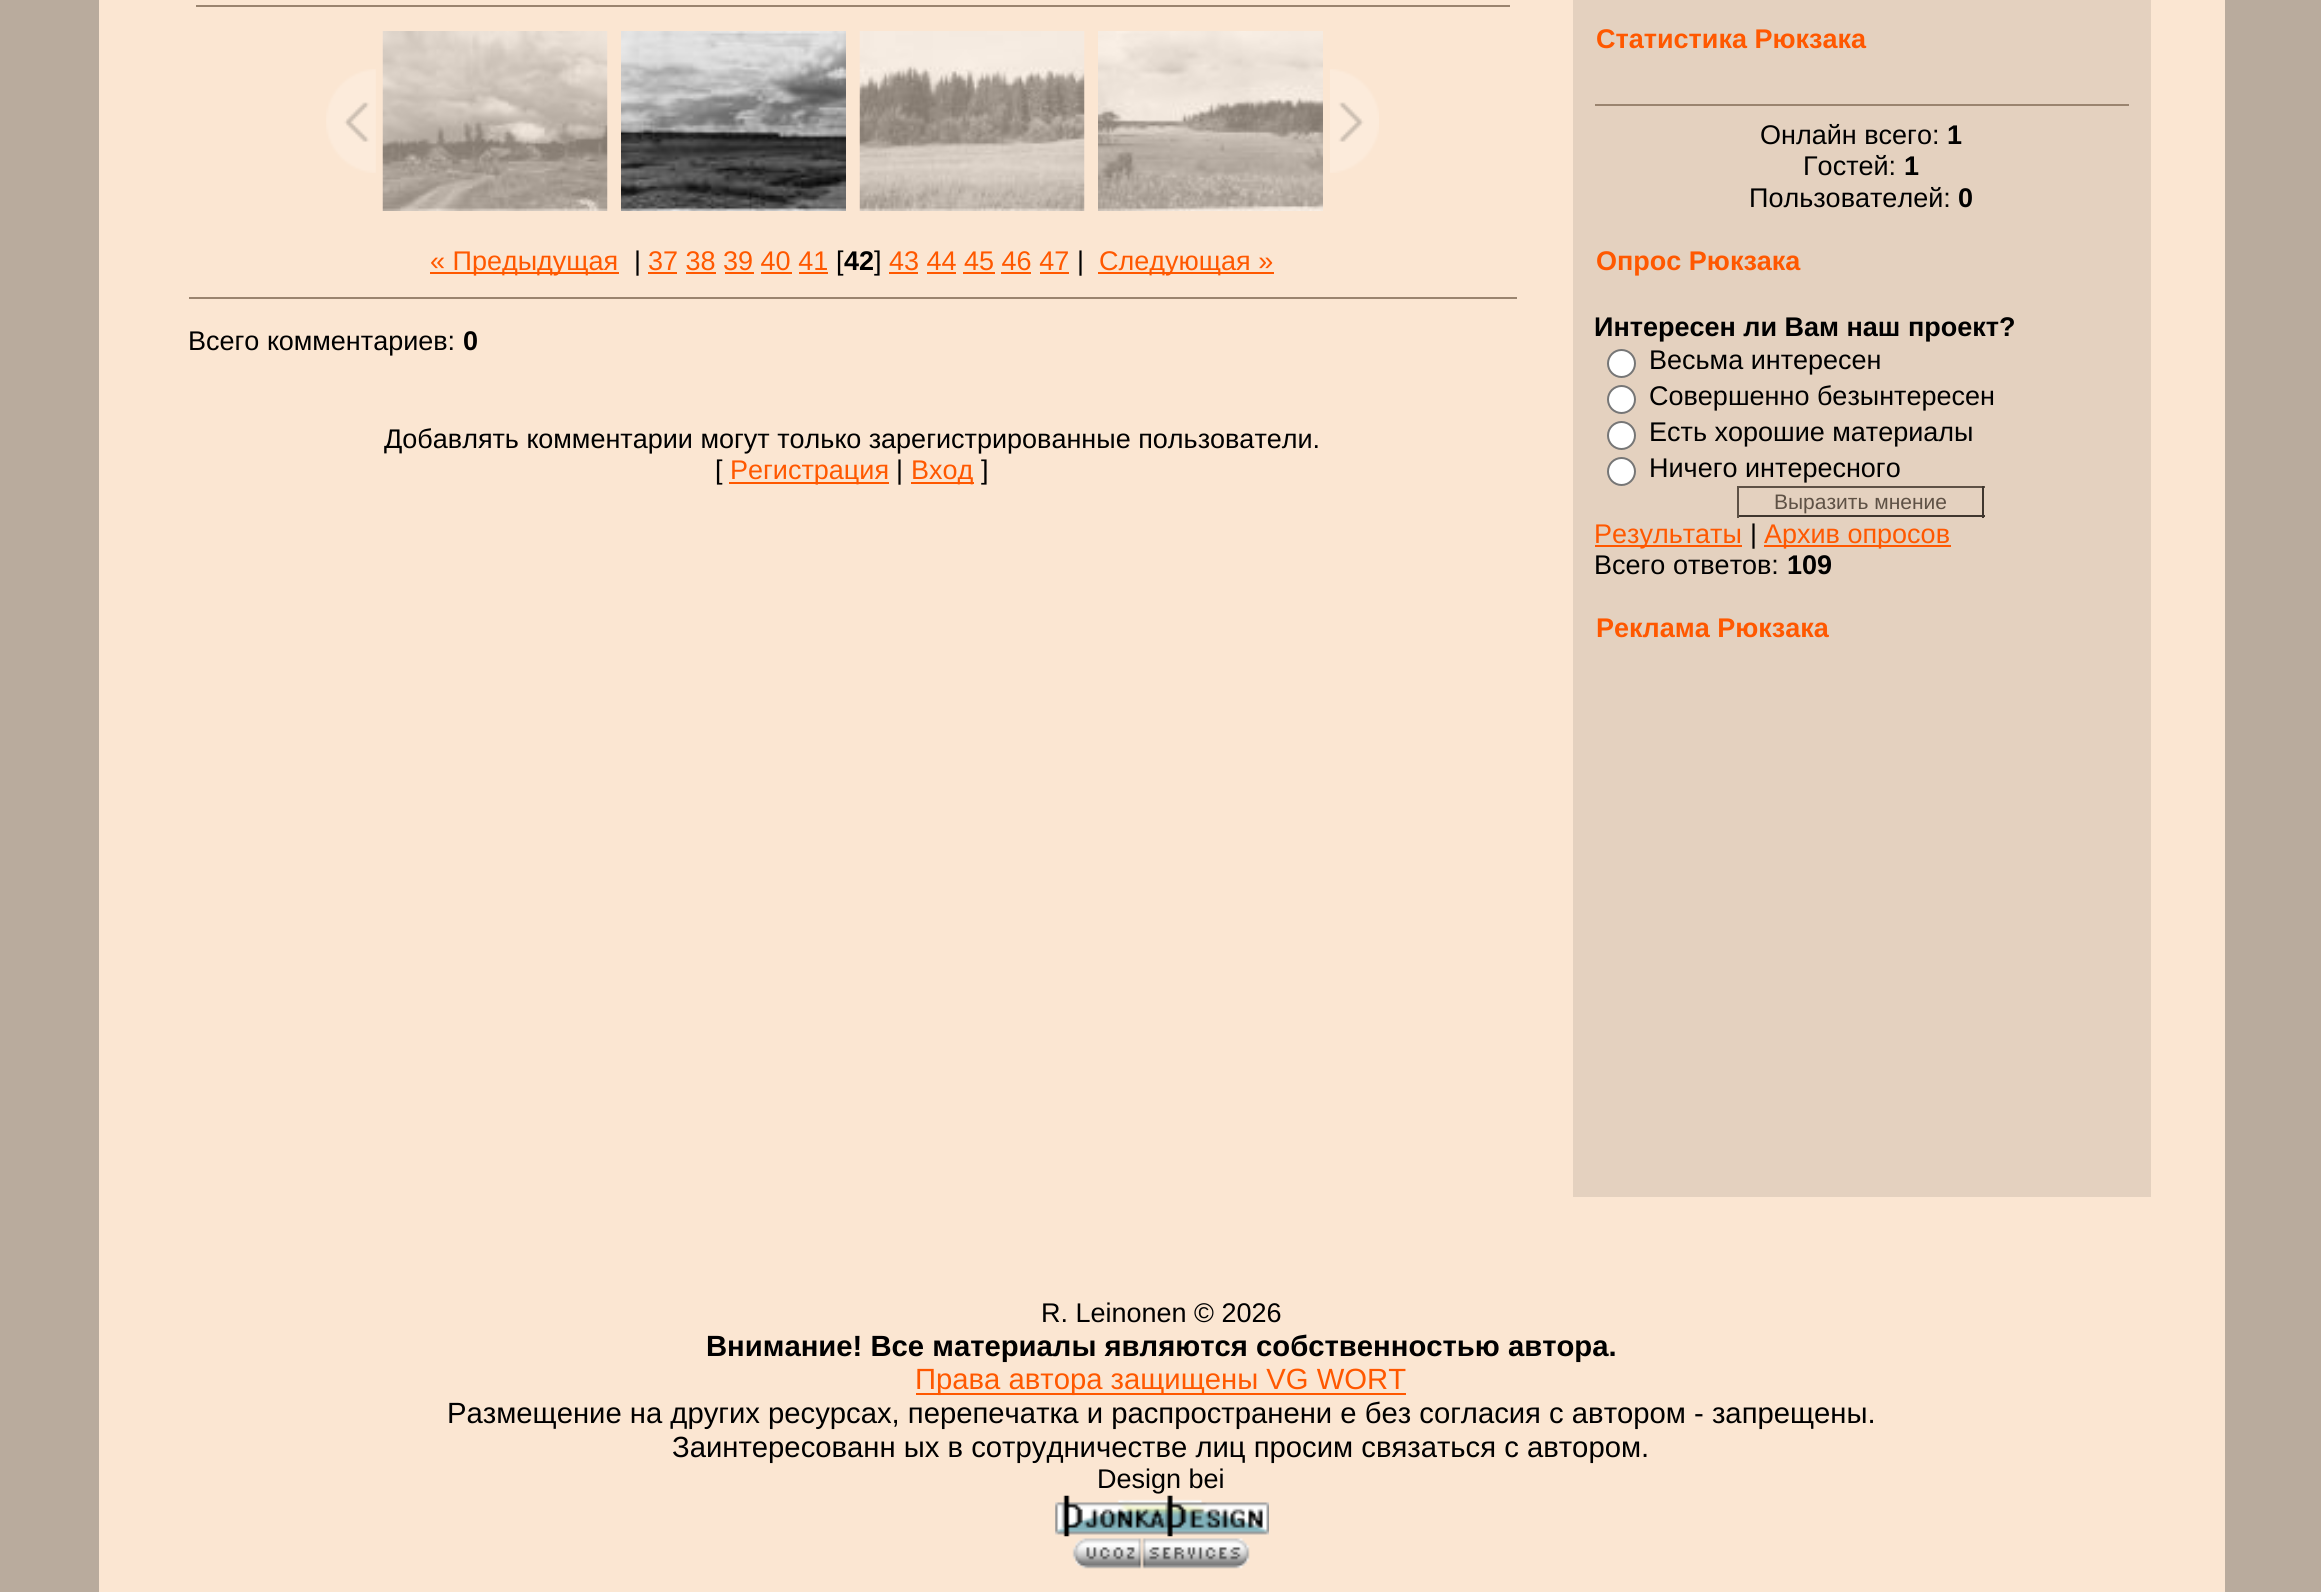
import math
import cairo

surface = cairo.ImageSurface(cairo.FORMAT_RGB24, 2321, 1592)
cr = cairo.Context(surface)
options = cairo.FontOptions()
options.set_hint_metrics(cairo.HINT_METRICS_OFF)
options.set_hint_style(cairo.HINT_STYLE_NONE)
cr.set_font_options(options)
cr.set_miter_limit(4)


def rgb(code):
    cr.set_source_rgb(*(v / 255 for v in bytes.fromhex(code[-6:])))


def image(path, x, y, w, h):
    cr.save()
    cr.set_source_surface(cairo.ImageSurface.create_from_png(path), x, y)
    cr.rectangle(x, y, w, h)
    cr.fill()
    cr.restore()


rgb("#b9ab9d")
cr.paint()
rgb("#fbe6d2")
cr.rectangle(99, 0, 2126, 1592)
cr.fill()
rgb("#9a846f")
cr.rectangle(196, 5, 1314, 2)
cr.fill()
image("img/1.png", 326, 69, 50, 104)
image("img/2.png", 382, 31, 226, 180)
image("img/3.png", 621, 31, 225, 180)
image("img/4.png", 859, 31, 226, 180)
image("img/5.png", 1098, 31, 225, 180)
image("img/6.png", 1330, 69, 49, 104)
for x, y, w, h, color in [
    (430, 272, 189, 2, "#ff5800"),
    (648, 272, 29, 2, "#ff5800"),
    (889, 272, 29, 2, "#ff5800"),
    (1098, 272, 176, 2, "#ff5800"),
    (686, 272, 30, 2, "#ff5800"),
    (725, 272, 29, 2, "#ff5800"),
    (761, 272, 31, 2, "#ff5800"),
    (799, 272, 29, 2, "#ff5800"),
    (927, 272, 29, 2, "#ff5800"),
    (963, 272, 32, 2, "#ff5800"),
    (1001, 272, 30, 2, "#ff5800"),
    (1040, 272, 29, 2, "#ff5800"),
    (189, 297, 1328, 2, "#9a846f"),
    (729, 482, 160, 2, "#ff5800"),
    (911, 482, 63, 2, "#ff5800"),
    (1573, 0, 578, 1197, "#e4d1bf"),
    (1595, 104, 534, 2, "#9a846f"),
]:
    rgb(color)
    cr.rectangle(x, y, w, h)
    cr.fill()
rgb("#ffffff")
cr.arc(1621.5, 363.5, 13.5, 0, 2 * math.pi)
cr.fill_preserve()
rgb("#767676")
cr.stroke()
rgb("#ffffff")
cr.arc(1621.5, 399.5, 13.5, 0, 2 * math.pi)
cr.fill_preserve()
rgb("#767676")
cr.stroke()
rgb("#ffffff")
cr.arc(1621.5, 435.5, 13.5, 0, 2 * math.pi)
cr.fill_preserve()
rgb("#767676")
cr.stroke()
rgb("#ffffff")
cr.arc(1621.5, 471.5, 13.5, 0, 2 * math.pi)
cr.fill_preserve()
rgb("#767676")
cr.stroke()
for x, y, w, h, color in [
    (1737, 486, 248, 2, "#5e5145"),
    (1982, 486, 2, 32, "#3f362e"),
    (1737, 515, 248, 2, "#3f362e"),
    (1737, 486, 2, 32, "#5e5145"),
    (1595, 545, 147, 2, "#ff5800"),
    (1764, 545, 187, 2, "#ff5800"),
    (916, 1393, 490, 2, "#ff5800"),
]:
    rgb(color)
    cr.rectangle(x, y, w, h)
    cr.fill()
image("img/7.png", 1055, 1495, 214, 42)
image("img/8.png", 1072, 1538, 178, 31)
cr.select_font_face("Liberation Sans")
cr.set_font_size(27)
cr.move_to(430, 270)
cr.show_text("« Предыдущая")
rgb("#000000")
cr.move_to(634, 270)
cr.show_text("|")
rgb("#ff5800")
cr.move_to(648, 270)
cr.show_text("37 38 39 40 41")
rgb("#000000")
cr.move_to(836, 270)
cr.show_text("[")
cr.select_font_face("Liberation Sans", cairo.FONT_SLANT_NORMAL, cairo.FONT_WEIGHT_BOLD)
cr.move_to(844, 270)
cr.show_text("42")
cr.select_font_face("Liberation Sans")
cr.move_to(874, 270)
cr.show_text("]")
rgb("#ff5800")
cr.move_to(889, 270)
cr.show_text("43 44 45 46 47")
rgb("#000000")
cr.move_to(1077, 270)
cr.show_text("|")
rgb("#ff5800")
cr.move_to(1099, 270)
cr.show_text("Следующая »")
rgb("#000000")
cr.move_to(188, 350)
cr.show_text("Всего комментариев:")
cr.select_font_face("Liberation Sans", cairo.FONT_SLANT_NORMAL, cairo.FONT_WEIGHT_BOLD)
cr.move_to(463, 350)
cr.show_text("0")
cr.select_font_face("Liberation Sans")
cr.move_to(384, 448)
cr.show_text("Добавлять комментарии могут только зарегистрированные пользователи.")
cr.move_to(715, 479)
cr.show_text("[")
rgb("#ff5800")
cr.move_to(730, 479)
cr.show_text("Регистрация")
rgb("#000000")
cr.move_to(896, 479)
cr.show_text("|")
rgb("#ff5800")
cr.move_to(911, 479)
cr.show_text("Вход")
rgb("#000000")
cr.move_to(981, 479)
cr.show_text("]")
cr.select_font_face("Liberation Sans", cairo.FONT_SLANT_NORMAL, cairo.FONT_WEIGHT_BOLD)
rgb("#ff5800")
cr.move_to(1596, 48)
cr.show_text("Статистика Рюкзака")
cr.select_font_face("Liberation Sans")
rgb("#000000")
cr.move_to(1760, 144)
cr.show_text("Онлайн всего:")
cr.select_font_face("Liberation Sans", cairo.FONT_SLANT_NORMAL, cairo.FONT_WEIGHT_BOLD)
cr.move_to(1947, 144)
cr.show_text("1")
cr.select_font_face("Liberation Sans")
cr.move_to(1803, 175)
cr.show_text("Гостей:")
cr.select_font_face("Liberation Sans", cairo.FONT_SLANT_NORMAL, cairo.FONT_WEIGHT_BOLD)
cr.move_to(1904, 175)
cr.show_text("1")
cr.select_font_face("Liberation Sans")
cr.move_to(1749, 207)
cr.show_text("Пользователей:")
cr.select_font_face("Liberation Sans", cairo.FONT_SLANT_NORMAL, cairo.FONT_WEIGHT_BOLD)
cr.move_to(1958, 207)
cr.show_text("0")
rgb("#ff5800")
cr.move_to(1596, 270)
cr.show_text("Опрос Рюкзака")
rgb("#000000")
cr.move_to(1594, 336)
cr.show_text("Интересен ли Вам наш проект?")
cr.select_font_face("Liberation Sans")
for x, y, s in [
    (1649, 369, "Весьма интересен"),
    (1649, 405, "Совершенно безынтересен"),
    (1649, 441, "Есть хорошие материалы"),
    (1649, 477, "Ничего интересного"),
]:
    cr.move_to(x, y)
    cr.show_text(s)
cr.set_font_size(21)
rgb("#5e5145")
cr.move_to(1774, 509)
cr.show_text("Выразить мнение")
cr.set_font_size(27)
rgb("#ff5800")
cr.move_to(1594, 543)
cr.show_text("Результаты")
rgb("#000000")
cr.move_to(1750, 543)
cr.show_text("|")
rgb("#ff5800")
cr.move_to(1764, 543)
cr.show_text("Архив опросов")
rgb("#000000")
cr.move_to(1594, 574)
cr.show_text("Всего ответов:")
cr.select_font_face("Liberation Sans", cairo.FONT_SLANT_NORMAL, cairo.FONT_WEIGHT_BOLD)
cr.move_to(1787, 574)
cr.show_text("109")
rgb("#ff5800")
cr.move_to(1596, 637)
cr.show_text("Реклама Рюкзака")
cr.select_font_face("Liberation Sans")
rgb("#000000")
cr.move_to(1041, 1322)
cr.show_text("R. Leinonen © 2026")
cr.select_font_face("Liberation Sans", cairo.FONT_SLANT_NORMAL, cairo.FONT_WEIGHT_BOLD)
cr.set_font_size(29.25)
cr.move_to(706, 1356)
cr.show_text("Внимание! Все материалы являются собственностью автора.")
cr.select_font_face("Liberation Sans")
rgb("#ff5800")
cr.move_to(915, 1389)
cr.show_text("Права автора защищены VG WORT")
rgb("#000000")
cr.move_to(447, 1423)
cr.show_text("Размещение на других ресурсах, перепечатка и распространени е без согласия с автором - запрещены.")
cr.move_to(672, 1457)
cr.show_text("Заинтересованн ых в сотрудничестве лиц просим связаться с автором.")
cr.set_font_size(27)
cr.move_to(1097, 1488)
cr.show_text("Design bei")
surface.write_to_png("page.png")
